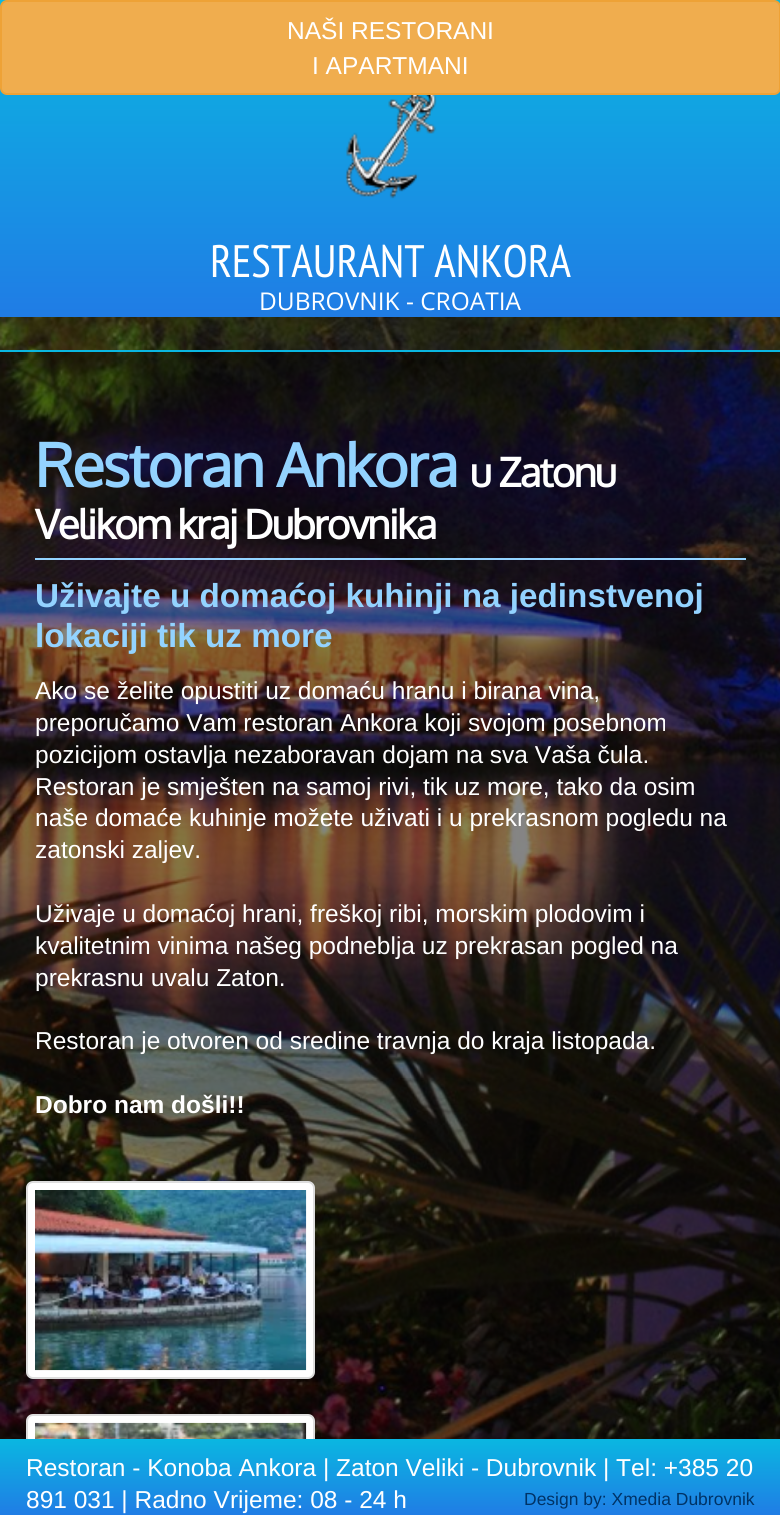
import math
import cairo

surface = cairo.ImageSurface(cairo.FORMAT_RGB24, 780, 1515)
cr = cairo.Context(surface)
options = cairo.FontOptions()
options.set_hint_metrics(cairo.HINT_METRICS_OFF)
options.set_hint_style(cairo.HINT_STYLE_NONE)
cr.set_font_options(options)
cr.set_miter_limit(4)


def rgb(code):
    cr.set_source_rgb(*(v / 255 for v in bytes.fromhex(code[-6:])))


def tracked(x, y, s, letter, word):
    cr.move_to(x, y)
    for ch in s:
        cr.show_text(ch)
        cr.rel_move_to(letter + word * (ch == ' '), 0)


def rrect(x, y, w, h, r):
    cr.new_sub_path()
    for i, (u, v) in enumerate([(x + w - r, y + h - r), (x + r, y + h - r), (x + r, y + r), (x + w - r, y + r)]):
        cr.arc(u, v, r, i * math.pi / 2, (i + 1) * math.pi / 2)
    cr.close_path()


def image(path, x, y, w, h):
    cr.save()
    cr.set_source_surface(cairo.ImageSurface.create_from_png(path), x, y)
    cr.rectangle(x, y, w, h)
    cr.fill()
    cr.restore()


rgb("#ffffff")
cr.paint()
gradient = cairo.LinearGradient(390, 0, 390, 317)
gradient.add_color_stop_rgba(0, 0.039, 0.718, 0.882, 1)
gradient.add_color_stop_rgba(1, 0.125, 0.486, 0.898, 1)
cr.set_source(gradient)
cr.rectangle(0, 0, 780, 317)
cr.fill()
rgb("#f0ad4e")
rrect(1, 1, 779, 93, 6)
cr.fill_preserve()
rgb("#eea236")
cr.stroke()
image("img/1.png", 345, 95, 92, 104)
image("img/4.png", 0, 317, 780, 1122)
cr.set_source_rgba(0, 0, 0, 0.48)
cr.rectangle(0, 352, 780, 1087)
cr.fill()
rgb("#0ab7e1")
cr.rectangle(0, 350, 780, 2)
cr.fill()
rgb("#93d3ff")
cr.rectangle(35, 558, 711, 2)
cr.fill()
rgb("#ffffff")
rrect(27, 1182, 287, 196, 6)
cr.fill_preserve()
rgb("#dddddd")
cr.stroke()
image("img/2.png", 35, 1190, 272, 181)
rgb("#ffffff")
rrect(27, 1415, 287, 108, 6)
cr.fill_preserve()
rgb("#dddddd")
cr.stroke()
image("img/3.png", 35, 1422, 272, 17)
gradient = cairo.LinearGradient(390, 1439, 390, 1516)
gradient.add_color_stop_rgba(0, 0.039, 0.718, 0.882, 1)
gradient.add_color_stop_rgba(1, 0.125, 0.486, 0.898, 1)
cr.set_source(gradient)
cr.rectangle(0, 1439, 780, 76)
cr.fill()
cr.select_font_face("Liberation Sans")
cr.set_font_size(24.5)
rgb("#ffffff")
cr.move_to(287, 39)
cr.show_text("NAŠI RESTORANI")
cr.move_to(312, 74)
cr.show_text("I APARTMANI")
cr.select_font_face("PT Sans Narrow")
cr.set_font_size(45.5)
cr.move_to(210, 277)
cr.show_text("RESTAURANT ANKORA")
cr.select_font_face("Open Sans")
cr.set_font_size(24.5)
cr.move_to(259, 310)
cr.show_text("DUBROVNIK - CROATIA")
cr.select_font_face("Oxygen", cairo.FONT_SLANT_NORMAL, cairo.FONT_WEIGHT_BOLD)
cr.set_font_size(59.5)
rgb("#93d3ff")
tracked(35, 487, "Restoran Ankora", -1.75, 0)
cr.set_font_size(40.25)
rgb("#ffffff")
tracked(470, 487, "u Zatonu", -1.75, 0)
tracked(35, 539, "Velikom kraj Dubrovnika", -1.75, 0)
cr.select_font_face("Liberation Sans", cairo.FONT_SLANT_NORMAL, cairo.FONT_WEIGHT_BOLD)
cr.set_font_size(33.25)
rgb("#93d3ff")
cr.move_to(35, 607)
cr.show_text("Uživajte u domaćoj kuhinji na jedinstvenoj")
cr.move_to(35, 647)
cr.show_text("lokaciji tik uz more")
cr.select_font_face("Liberation Sans")
cr.set_font_size(24.5)
rgb("#ffffff")
for x, y, s in [
    (35, 699, "Ako se želite opustiti uz domaću hranu i birana vina,"),
    (35, 731, "preporučamo Vam restoran Ankora koji svojom posebnom"),
    (35, 763, "pozicijom ostavlja nezaboravan dojam na sva Vaša čula."),
    (35, 795, "Restoran je smješten na samoj rivi, tik uz more, tako da osim"),
    (35, 826, "naše domaće kuhinje možete uživati i u prekrasnom pogledu na"),
    (35, 858, "zatonski zaljev."),
    (35, 922, "Uživaje u domaćoj hrani, freškoj ribi, morskim plodovim i"),
    (35, 954, "kvalitetnim vinima našeg podneblja uz prekrasan pogled na"),
    (35, 986, "prekrasnu uvalu Zaton."),
    (35, 1049, "Restoran je otvoren od sredine travnja do kraja listopada."),
]:
    cr.move_to(x, y)
    cr.show_text(s)
cr.select_font_face("Liberation Sans", cairo.FONT_SLANT_NORMAL, cairo.FONT_WEIGHT_BOLD)
cr.move_to(35, 1113)
cr.show_text("Dobro nam došli!!")
cr.select_font_face("Liberation Sans")
cr.move_to(26, 1476)
cr.show_text("Restoran - Konoba Ankora | Zaton Veliki - Dubrovnik | Tel: +385 20")
cr.move_to(26, 1508)
cr.show_text("891 031 | Radno Vrijeme: 08 - 24 h")
cr.set_font_size(17.5)
rgb("#003366")
cr.move_to(524, 1505)
cr.show_text("Design by: Xmedia Dubrovnik")
surface.write_to_png("page.png")
